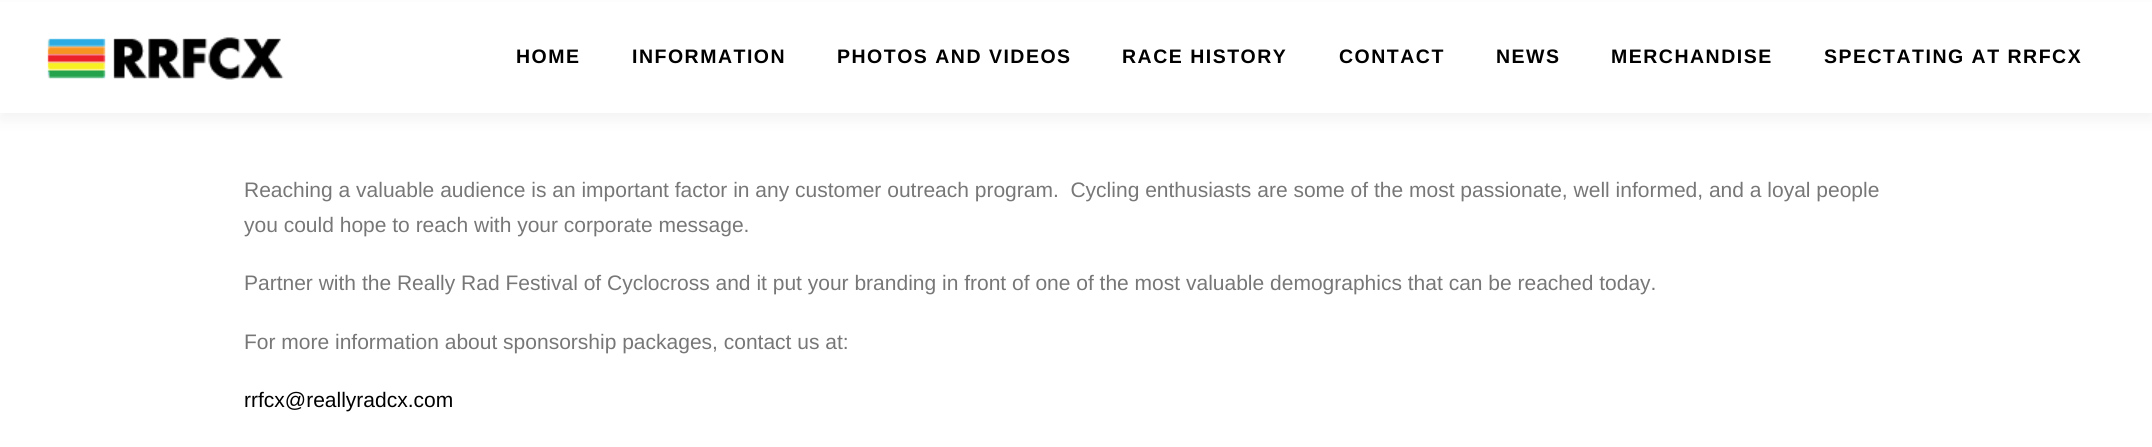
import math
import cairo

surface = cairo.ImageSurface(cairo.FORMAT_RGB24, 2152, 447)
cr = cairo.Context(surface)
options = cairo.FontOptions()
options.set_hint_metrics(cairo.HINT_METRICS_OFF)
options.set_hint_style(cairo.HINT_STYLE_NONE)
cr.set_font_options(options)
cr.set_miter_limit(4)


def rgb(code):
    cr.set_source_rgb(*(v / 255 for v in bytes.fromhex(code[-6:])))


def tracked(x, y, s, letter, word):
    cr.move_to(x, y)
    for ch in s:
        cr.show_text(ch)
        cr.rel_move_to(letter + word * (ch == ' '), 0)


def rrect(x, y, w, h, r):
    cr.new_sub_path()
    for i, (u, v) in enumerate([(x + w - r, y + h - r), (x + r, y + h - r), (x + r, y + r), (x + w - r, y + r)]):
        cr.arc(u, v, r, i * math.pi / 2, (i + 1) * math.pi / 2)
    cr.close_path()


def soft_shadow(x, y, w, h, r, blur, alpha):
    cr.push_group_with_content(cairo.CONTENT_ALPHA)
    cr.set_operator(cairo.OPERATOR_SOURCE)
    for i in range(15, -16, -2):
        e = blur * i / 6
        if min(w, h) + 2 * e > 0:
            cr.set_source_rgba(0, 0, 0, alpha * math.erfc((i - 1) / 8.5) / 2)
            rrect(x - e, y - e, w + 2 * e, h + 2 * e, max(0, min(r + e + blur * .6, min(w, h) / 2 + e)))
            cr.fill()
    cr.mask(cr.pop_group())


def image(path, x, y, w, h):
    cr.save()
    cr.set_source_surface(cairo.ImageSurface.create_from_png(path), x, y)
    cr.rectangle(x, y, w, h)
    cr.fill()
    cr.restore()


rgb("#ffffff")
cr.paint()
rgb("#323232")
soft_shadow(0, 8, 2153, 112, 0, 7.5, 0.06)
rgb("#ffffff")
cr.rectangle(0, 2, 2152, 111)
cr.fill()
image("img/1.png", 47, 37, 237, 43)
cr.select_font_face("Liberation Sans", cairo.FONT_SLANT_NORMAL, cairo.FONT_WEIGHT_BOLD)
cr.set_font_size(19.5)
rgb("#000000")
for x, y, s in [
    (516, 63, "HOME"),
    (632, 63, "INFORMATION"),
    (837, 63, "PHOTOS AND VIDEOS"),
    (1122, 63, "RACE HISTORY"),
    (1339, 63, "CONTACT"),
    (1496, 63, "NEWS"),
    (1611, 63, "MERCHANDISE"),
    (1824, 63, "SPECTATING AT RRFCX"),
]:
    tracked(x, y, s, 1.5, 0)
cr.select_font_face("Liberation Sans")
cr.set_font_size(21)
rgb("#777777")
for x, y, s in [
    (244, 197, "Reaching a valuable audience is an important factor in any customer outreach program.  Cycling enthusiasts are some of the most passionate, well informed, and a loyal people"),
    (244, 232, "you could hope to reach with your corporate message."),
    (244, 290, "Partner with the Really Rad Festival of Cyclocross and it put your branding in front of one of the most valuable demographics that can be reached today."),
    (244, 349, "For more information about sponsorship packages, contact us at:"),
]:
    cr.move_to(x, y)
    cr.show_text(s)
rgb("#000000")
cr.move_to(244, 407)
cr.show_text("rrfcx@reallyradcx.com")
surface.write_to_png("page.png")
